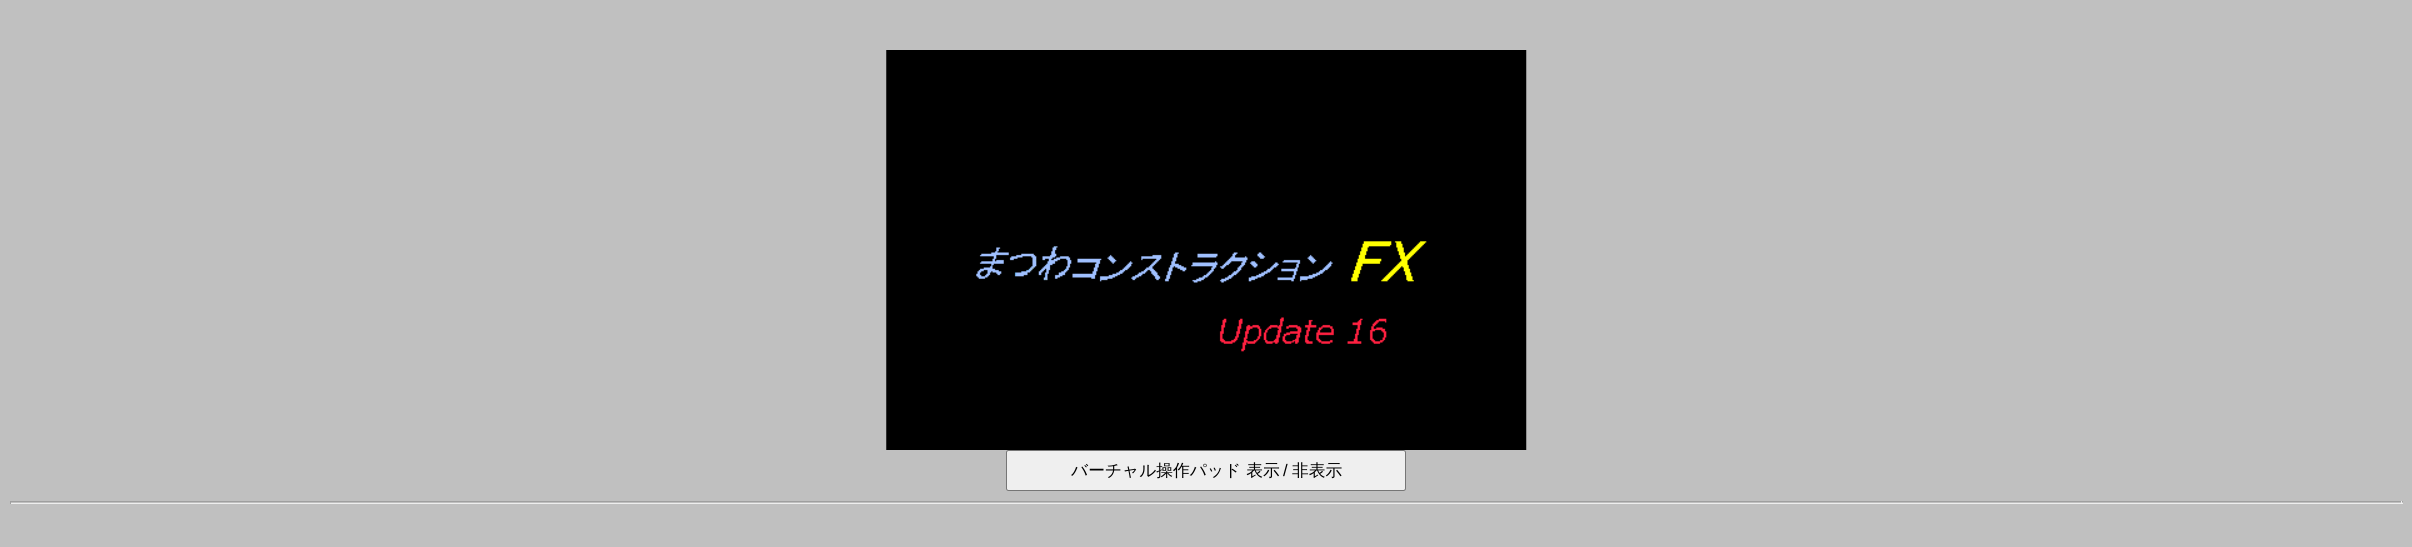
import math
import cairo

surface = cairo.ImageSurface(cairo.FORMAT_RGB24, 2412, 547)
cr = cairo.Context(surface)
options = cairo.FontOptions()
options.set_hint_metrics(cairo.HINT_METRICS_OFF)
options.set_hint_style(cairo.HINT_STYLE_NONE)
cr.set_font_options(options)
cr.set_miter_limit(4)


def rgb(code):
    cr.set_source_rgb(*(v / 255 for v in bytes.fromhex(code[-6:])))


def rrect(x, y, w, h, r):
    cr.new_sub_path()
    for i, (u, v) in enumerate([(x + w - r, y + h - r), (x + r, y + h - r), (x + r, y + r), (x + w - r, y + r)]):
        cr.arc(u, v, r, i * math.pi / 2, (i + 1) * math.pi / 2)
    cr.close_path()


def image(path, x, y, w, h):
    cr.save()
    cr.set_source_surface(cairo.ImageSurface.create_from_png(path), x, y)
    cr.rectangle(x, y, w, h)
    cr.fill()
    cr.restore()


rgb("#c0c0c0")
cr.paint()
image("img/1.png", 886, 50, 641, 400)
rgb("#efefef")
rrect(1006.5, 450.5, 399, 40, 2)
cr.fill_preserve()
rgb("#767676")
cr.set_line_width(1)
cr.stroke()
for x, y, w, h, color in [
    (10, 501, 2393, 1, "#9f9f9f"),
    (2401, 501, 1, 3, "#eeeeee"),
    (10, 503, 2393, 1, "#eeeeee"),
    (10, 501, 1, 3, "#9f9f9f"),
]:
    rgb(color)
    cr.rectangle(x, y, w, h)
    cr.fill()
cr.select_font_face("WenQuanYi Zen Hei Medium")
cr.set_font_size(16.75)
rgb("#000000")
cr.move_to(1071, 476)
cr.show_text("バーチャル操作パッド 表示")
cr.select_font_face("Liberation Sans")
cr.move_to(1283, 476)
cr.show_text("/")
cr.select_font_face("WenQuanYi Zen Hei Medium")
cr.move_to(1292, 476)
cr.show_text("非表示")
surface.write_to_png("page.png")
